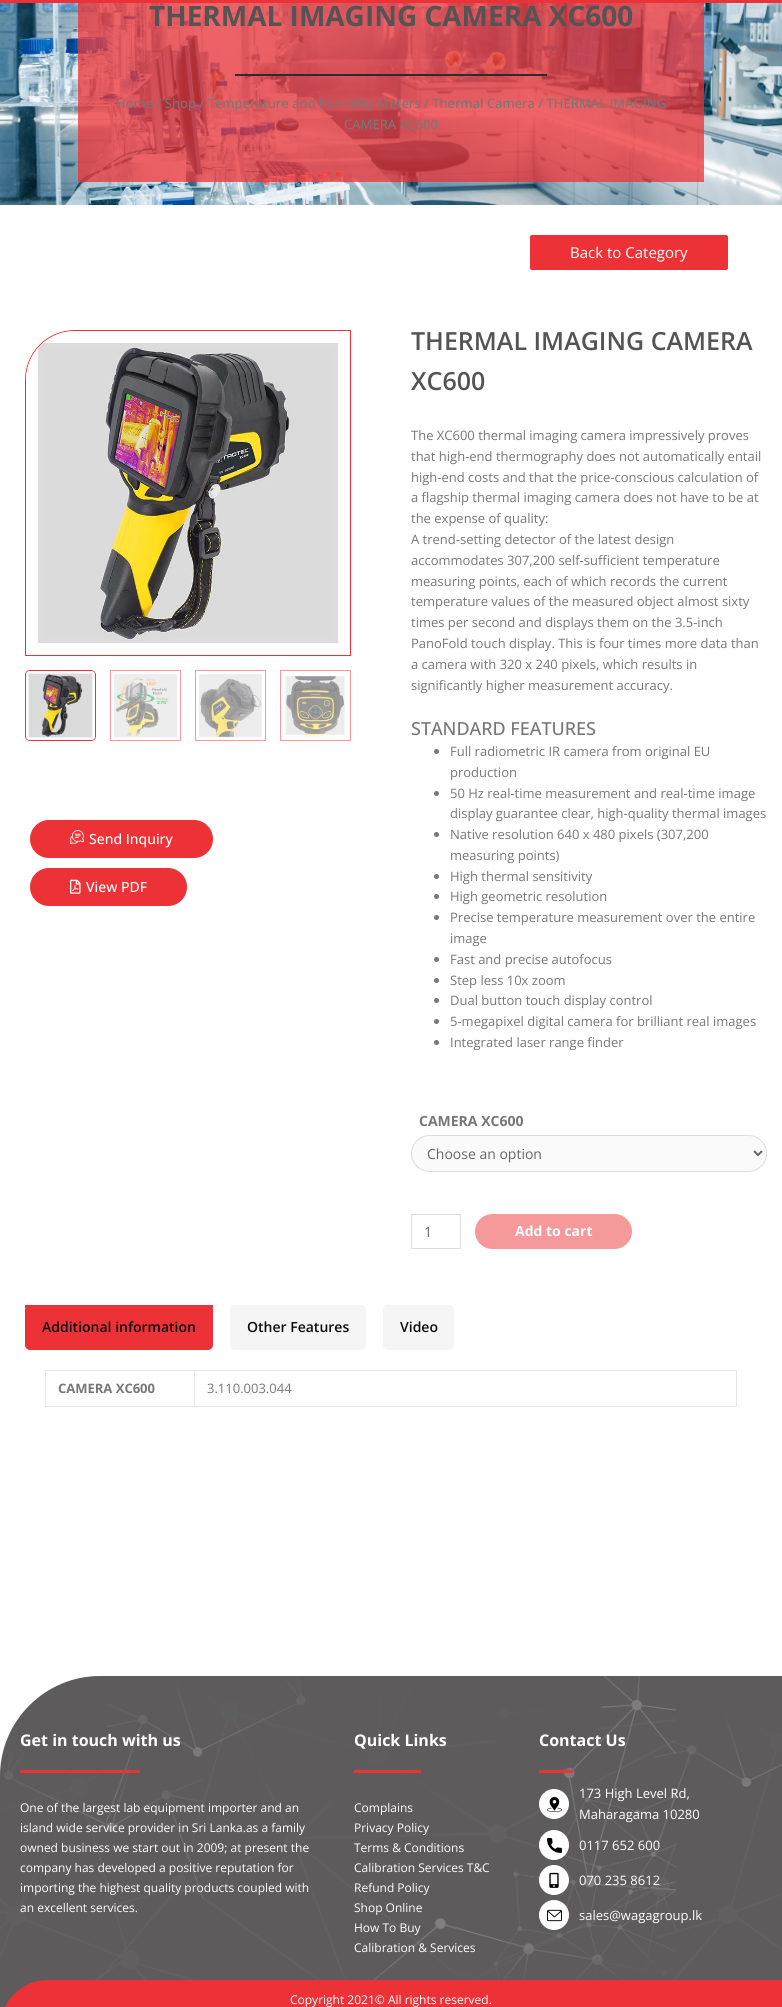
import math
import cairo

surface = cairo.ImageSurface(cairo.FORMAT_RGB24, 782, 2007)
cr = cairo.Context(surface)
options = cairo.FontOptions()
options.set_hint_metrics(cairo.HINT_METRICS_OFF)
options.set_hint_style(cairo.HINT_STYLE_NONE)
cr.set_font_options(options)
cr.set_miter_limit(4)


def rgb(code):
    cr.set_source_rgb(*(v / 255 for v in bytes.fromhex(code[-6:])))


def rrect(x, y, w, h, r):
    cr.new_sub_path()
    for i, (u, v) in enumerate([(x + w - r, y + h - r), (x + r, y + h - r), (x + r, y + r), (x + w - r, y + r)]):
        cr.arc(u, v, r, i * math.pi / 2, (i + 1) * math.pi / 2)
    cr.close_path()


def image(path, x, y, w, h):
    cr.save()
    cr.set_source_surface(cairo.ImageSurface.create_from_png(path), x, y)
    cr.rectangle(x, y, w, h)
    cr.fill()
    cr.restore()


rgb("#ffffff")
cr.paint()
rgb("#ec3236")
cr.rectangle(0, 0, 782, 3)
cr.fill()
image("img/1.png", 0, 3, 782, 202)
cr.set_source_rgba(0.925, 0.196, 0.212, 0.75)
cr.rectangle(78, 3, 626, 179)
cr.fill()
rgb("#2c2c2c")
cr.rectangle(235, 74, 312, 2)
cr.fill()
rgb("#ec3236")
rrect(530, 235, 198, 35, 2)
cr.fill()
cr.new_path()
cr.move_to(75, 330.5)
cr.line_to(350.5, 330.5)
cr.line_to(350.5, 655.5)
cr.line_to(25.5, 655.5)
cr.line_to(25.5, 380)
cr.curve_to(25.5, 352.5, 47.5, 330.5, 75, 330.5)
cr.close_path()
cr.set_line_width(1)
cr.stroke()
image("img/2.png", 26, 331, 313, 313)
rrect(25.5, 670.5, 70, 70, 4.5)
cr.stroke()
image("img/3.png", 26, 671, 69, 69)
cr.rectangle(110.5, 670.5, 70, 70)
rgb("#f6999b")
cr.stroke()
image("img/4.png", 111, 671, 66, 67)
cr.rectangle(195.5, 670.5, 70, 70)
cr.stroke()
image("img/5.png", 198, 674, 64, 64)
cr.rectangle(280.5, 670.5, 70, 70)
cr.stroke()
image("img/6.png", 285, 671, 62, 66)
rgb("#ec3236")
rrect(30, 820, 183, 38, 19)
cr.fill()
image("img/7.png", 70, 830, 14, 14)
rrect(30, 868, 157, 38, 19)
cr.fill()
image("img/8.png", 70, 879, 11, 15)
rgb("#777777")
cr.arc(436.5, 751.5, 2.5, 0, 2 * math.pi)
cr.fill()
cr.arc(436.5, 793.5, 2.5, 0, 2 * math.pi)
cr.fill()
cr.arc(436.5, 834.5, 2.5, 0, 2 * math.pi)
cr.fill()
cr.arc(436.5, 876.5, 2.5, 0, 2 * math.pi)
cr.fill()
cr.arc(436.5, 896.5, 2.5, 0, 2 * math.pi)
cr.fill()
cr.arc(436.5, 917.5, 2.5, 0, 2 * math.pi)
cr.fill()
cr.arc(436.5, 959.5, 2.5, 0, 2 * math.pi)
cr.fill()
cr.arc(436.5, 980.5, 2.5, 0, 2 * math.pi)
cr.fill()
cr.arc(436.5, 1000.5, 2.5, 0, 2 * math.pi)
cr.fill()
cr.arc(436.5, 1021.5, 2.5, 0, 2 * math.pi)
cr.fill()
cr.arc(436.5, 1042.5, 2.5, 0, 2 * math.pi)
cr.fill()
rgb("#fafafa")
rrect(411.5, 1135.5, 355, 36, 18)
cr.fill_preserve()
rgb("#dddddd")
cr.stroke()
cr.new_path()
cr.move_to(754, 1151)
cr.line_to(758, 1155)
cr.line_to(762, 1151)
rgb("#666666")
cr.set_line_width(2)
cr.stroke()
cr.rectangle(411.5, 1214.5, 49, 34)
rgb("#dddddd")
cr.set_line_width(1)
cr.stroke()
rgb("#f6999b")
rrect(475, 1214, 157, 35, 17.5)
cr.fill()
rgb("#ec3236")
rrect(25, 1305, 188, 45, 5)
cr.fill()
cr.rectangle(25, 1305, 188, 3)
cr.fill()
rgb("#f5f5f5")
rrect(230, 1305, 136, 45, 5)
cr.fill()
rrect(383, 1305, 71, 45, 5)
cr.fill()
rgb("#e6e6e6")
cr.rectangle(45, 1370, 692, 1)
cr.fill()
cr.new_path()
cr.move_to(195, 1371)
cr.line_to(195, 1407)
cr.line_to(194, 1406)
cr.line_to(194, 1371)
cr.close_path()
cr.fill()
cr.set_source_rgba(0, 0, 0, 0.1)
cr.new_path()
cr.move_to(195, 1407)
cr.line_to(45, 1407)
cr.line_to(46, 1406)
cr.line_to(194, 1406)
cr.close_path()
cr.fill()
cr.new_path()
cr.move_to(45, 1407)
cr.line_to(45, 1371)
cr.line_to(46, 1371)
cr.line_to(46, 1406)
cr.close_path()
cr.fill()
rgb("#e6e6e6")
cr.new_path()
cr.move_to(737, 1371)
cr.line_to(737, 1407)
cr.line_to(736, 1406)
cr.line_to(736, 1371)
cr.close_path()
cr.fill()
cr.set_source_rgba(0, 0, 0, 0.1)
cr.new_path()
cr.move_to(737, 1407)
cr.line_to(195, 1407)
cr.line_to(195, 1406)
cr.line_to(736, 1406)
cr.close_path()
cr.fill()
rgb("#5d5b5b")
cr.new_path()
cr.move_to(100, 1676)
cr.line_to(782, 1676)
cr.line_to(782, 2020)
cr.line_to(0, 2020)
cr.line_to(0, 1776)
cr.curve_to(0, 1721, 45, 1676, 100, 1676)
cr.close_path()
cr.fill()
image("img/9.png", 0, 1676, 782, 304)
for x, y, w, h, color in [
    (20, 1770, 120, 3, "#ec3236"),
    (354, 1770, 67, 3, "#ec3236"),
    (539, 1770, 34, 3, "#ec3236"),
]:
    rgb(color)
    cr.rectangle(x, y, w, h)
    cr.fill()
rgb("#ffffff")
cr.arc(554, 1804, 15, 0, 2 * math.pi)
cr.fill()
image("img/10.png", 547, 1797, 15, 15)
cr.arc(554, 1845, 15, 0, 2 * math.pi)
cr.fill()
image("img/11.png", 547, 1838, 15, 15)
cr.arc(554, 1880, 15, 0, 2 * math.pi)
cr.fill()
image("img/12.png", 549, 1872, 10, 16)
cr.arc(554, 1915, 15, 0, 2 * math.pi)
cr.fill()
image("img/13.png", 547, 1909, 15, 13)
rgb("#ec3236")
cr.new_path()
cr.move_to(48, 1980)
cr.line_to(782, 1980)
cr.line_to(782, 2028)
cr.line_to(0, 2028)
cr.curve_to(0, 2001.5, 21.5, 1980, 48, 1980)
cr.close_path()
cr.fill()
cr.select_font_face("Open Sans", cairo.FONT_SLANT_NORMAL, cairo.FONT_WEIGHT_BOLD)
cr.set_font_size(28)
rgb("#545454")
cr.move_to(149, 26)
cr.show_text("THERMAL IMAGING CAMERA XC600")
cr.select_font_face("Open Sans Medium")
cr.set_font_size(13)
rgb("#777777")
cr.move_to(116, 108)
cr.show_text("Home / Shop / Temperature and humidity Meters / Thermal Camera / THERMAL IMAGING")
cr.move_to(344, 129)
cr.show_text("CAMERA XC600")
cr.select_font_face("Open Sans")
cr.set_font_size(15)
rgb("#ffffff")
cr.move_to(570, 258)
cr.show_text("Back to Category")
cr.select_font_face("Open Sans Medium")
cr.set_font_size(14)
cr.move_to(89, 844)
cr.show_text("Send Inquiry")
cr.move_to(86, 892)
cr.show_text("View PDF")
cr.select_font_face("Open Sans SemiBold")
cr.set_font_size(25)
rgb("#545454")
cr.move_to(411, 350)
cr.show_text("THERMAL IMAGING CAMERA")
cr.move_to(411, 390)
cr.show_text("XC600")
cr.select_font_face("Open Sans")
cr.set_font_size(13)
rgb("#777777")
for x, y, s in [
    (411, 440, "The XC600 thermal imaging camera impressively proves"),
    (411, 461, "that high-end thermography does not automatically entail"),
    (411, 482, "high-end costs and that the price-conscious calculation of"),
    (411, 502, "a flagship thermal imaging camera does not have to be at"),
    (411, 523, "the expense of quality:"),
    (411, 544, "A trend-setting detector of the latest design"),
    (411, 565, "accommodates 307,200 self-sufficient temperature"),
    (411, 586, "measuring points, each of which records the current"),
    (411, 606, "temperature values of the measured object almost sixty"),
    (411, 627, "times per second and displays them on the 3.5-inch"),
    (411, 648, "PanoFold touch display. This is four times more data than"),
    (411, 669, "a camera with 320 x 240 pixels, which results in"),
    (411, 690, "significantly higher measurement accuracy."),
]:
    cr.move_to(x, y)
    cr.show_text(s)
cr.select_font_face("Open Sans Medium")
cr.set_font_size(18)
cr.move_to(411, 735)
cr.show_text("STANDARD FEATURES")
cr.select_font_face("Open Sans")
cr.set_font_size(13)
for x, y, s in [
    (450, 756, "Full radiometric IR camera from original EU"),
    (450, 777, "production"),
    (450, 798, "50 Hz real-time measurement and real-time image"),
    (450, 818, "display guarantee clear, high-quality thermal images"),
    (450, 839, "Native resolution 640 x 480 pixels (307,200"),
    (450, 860, "measuring points)"),
    (450, 881, "High thermal sensitivity"),
    (450, 901, "High geometric resolution"),
    (450, 922, "Precise temperature measurement over the entire"),
    (450, 943, "image"),
    (450, 964, "Fast and precise autofocus"),
    (450, 985, "Step less 10x zoom"),
    (450, 1005, "Dual button touch display control"),
    (450, 1026, "5-megapixel digital camera for brilliant real images"),
    (450, 1047, "Integrated laser range finder"),
]:
    cr.move_to(x, y)
    cr.show_text(s)
cr.select_font_face("Open Sans", cairo.FONT_SLANT_NORMAL, cairo.FONT_WEIGHT_BOLD)
cr.set_font_size(14)
cr.move_to(419, 1126)
cr.show_text("CAMERA XC600")
cr.select_font_face("Open Sans")
rgb("#666666")
cr.move_to(427, 1159)
cr.show_text("Choose an option")
cr.move_to(424, 1237)
cr.show_text("1")
cr.select_font_face("Open Sans", cairo.FONT_SLANT_NORMAL, cairo.FONT_WEIGHT_BOLD)
rgb("#ffffff")
cr.move_to(515, 1236)
cr.show_text("Add to cart")
cr.select_font_face("Open Sans SemiBold")
rgb("#0c0c0c")
for x, y, s in [
    (42, 1332, "Additional information"),
    (247, 1332, "Other Features"),
    (400, 1332, "Video"),
]:
    cr.move_to(x, y)
    cr.show_text(s)
cr.select_font_face("Open Sans", cairo.FONT_SLANT_NORMAL, cairo.FONT_WEIGHT_BOLD)
cr.set_font_size(13)
rgb("#777777")
cr.move_to(58, 1393)
cr.show_text("CAMERA XC600")
cr.select_font_face("Open Sans")
cr.move_to(207, 1393)
cr.show_text("3.110.003.044")
cr.select_font_face("Open Sans", cairo.FONT_SLANT_NORMAL, cairo.FONT_WEIGHT_BOLD)
cr.set_font_size(16)
rgb("#ffffff")
cr.move_to(20, 1746)
cr.show_text("Get in touch with us")
cr.select_font_face("Open Sans")
cr.set_font_size(12)
for x, y, s in [
    (20, 1812, "One of the largest lab equipment importer and an"),
    (20, 1832, "island wide service provider in Sri Lanka.as a family"),
    (20, 1852, "owned business we start out in 2009; at present the"),
    (20, 1872, "company has developed a positive reputation for"),
    (20, 1892, "importing the highest quality products coupled with"),
    (20, 1912, "an excellent services."),
]:
    cr.move_to(x, y)
    cr.show_text(s)
cr.select_font_face("Open Sans", cairo.FONT_SLANT_NORMAL, cairo.FONT_WEIGHT_BOLD)
cr.set_font_size(16)
cr.move_to(354, 1746)
cr.show_text("Quick Links")
cr.select_font_face("Open Sans")
cr.set_font_size(12)
for x, y, s in [
    (354, 1812, "Complains"),
    (354, 1832, "Privacy Policy"),
    (354, 1852, "Terms & Conditions"),
    (354, 1872, "Calibration Services T&C"),
    (354, 1892, "Refund Policy"),
    (354, 1912, "Shop Online"),
    (354, 1932, "How To Buy"),
    (354, 1952, "Calibration & Services"),
]:
    cr.move_to(x, y)
    cr.show_text(s)
cr.select_font_face("Open Sans", cairo.FONT_SLANT_NORMAL, cairo.FONT_WEIGHT_BOLD)
cr.set_font_size(16)
cr.move_to(539, 1746)
cr.show_text("Contact Us")
cr.select_font_face("Open Sans")
cr.set_font_size(13)
for x, y, s in [
    (579, 1798, "173 High Level Rd,"),
    (579, 1819, "Maharagama 10280"),
    (579, 1850, "0117 652 600"),
    (579, 1885, "070 235 8612"),
    (579, 1920, "sales@wagagroup.lk"),
]:
    cr.move_to(x, y)
    cr.show_text(s)
cr.set_font_size(12)
cr.move_to(290, 2004)
cr.show_text("Copyright 2021© All rights reserved.")
surface.write_to_png("page.png")
